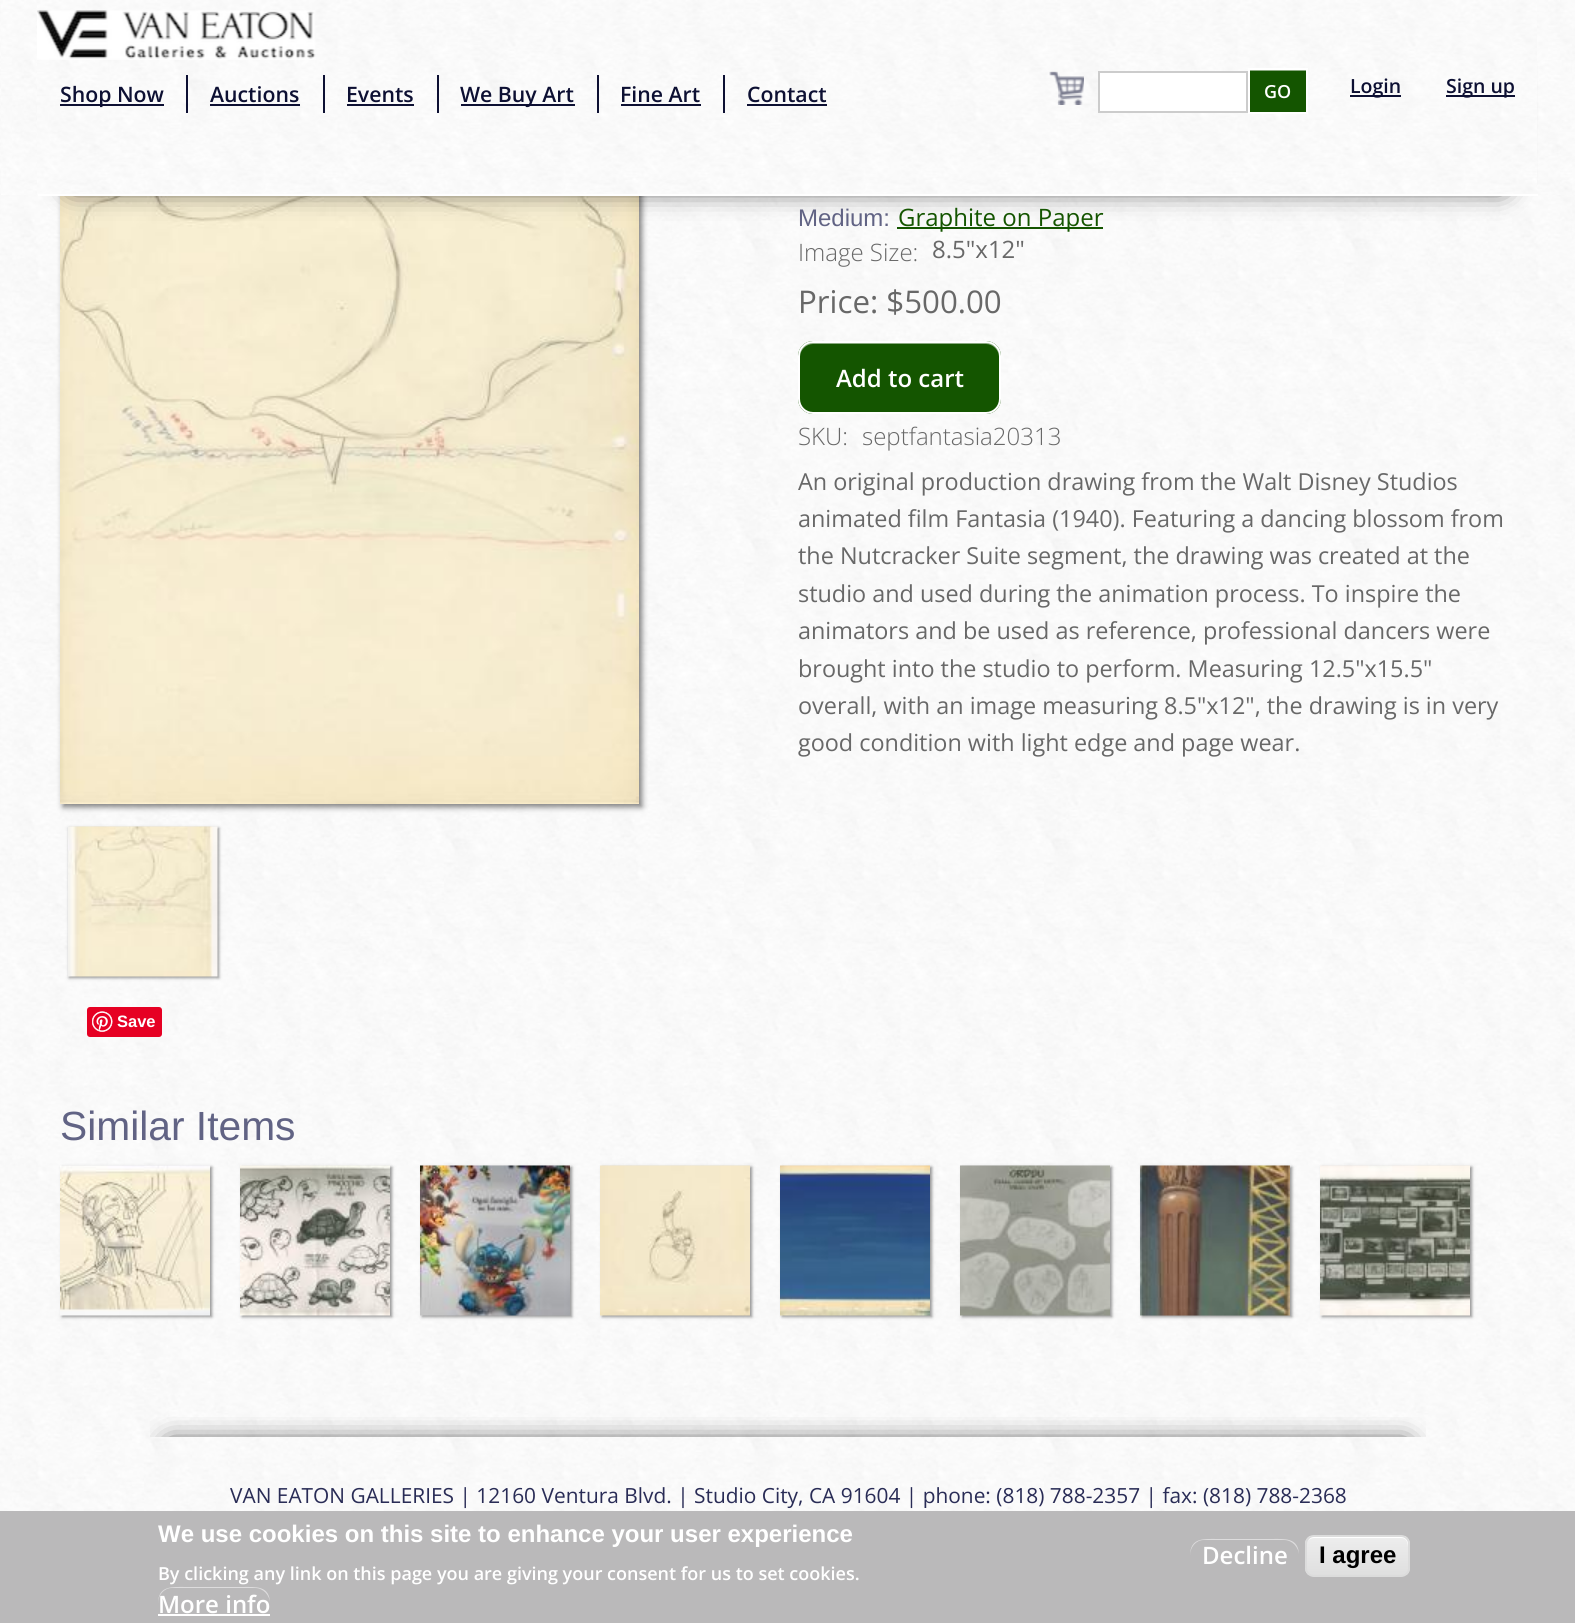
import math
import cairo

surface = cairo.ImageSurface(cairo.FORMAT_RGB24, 1575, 1623)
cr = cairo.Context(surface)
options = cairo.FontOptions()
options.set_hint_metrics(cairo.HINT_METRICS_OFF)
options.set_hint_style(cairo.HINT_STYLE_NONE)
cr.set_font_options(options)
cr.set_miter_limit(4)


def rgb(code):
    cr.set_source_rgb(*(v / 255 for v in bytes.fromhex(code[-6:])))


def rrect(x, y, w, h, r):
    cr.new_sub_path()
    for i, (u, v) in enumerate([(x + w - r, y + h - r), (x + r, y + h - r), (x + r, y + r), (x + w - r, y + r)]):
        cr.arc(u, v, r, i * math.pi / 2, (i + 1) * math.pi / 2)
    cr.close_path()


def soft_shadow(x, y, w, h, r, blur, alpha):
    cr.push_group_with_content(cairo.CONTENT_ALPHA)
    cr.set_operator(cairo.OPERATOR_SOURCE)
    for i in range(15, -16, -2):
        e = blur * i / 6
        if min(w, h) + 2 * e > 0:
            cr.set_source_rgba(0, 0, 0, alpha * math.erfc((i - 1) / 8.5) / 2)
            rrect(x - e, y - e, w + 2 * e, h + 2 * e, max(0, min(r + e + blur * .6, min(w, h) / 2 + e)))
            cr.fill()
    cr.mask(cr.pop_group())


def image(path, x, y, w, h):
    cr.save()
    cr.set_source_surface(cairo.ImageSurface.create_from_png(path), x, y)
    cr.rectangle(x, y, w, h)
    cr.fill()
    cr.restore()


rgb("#ffffff")
cr.paint()
image("img/1.png", 0, 0, 1575, 1511)
rgb("#000000")
soft_shadow(63, 87, 579, 720, 0, 3, 0.5)
image("img/2.png", 1, 0, 1574, 195)
image("img/6.png", 60, 196, 579, 608)
rgb("#145500")
cr.rectangle(897, 227, 206, 2)
cr.fill()
rgb("#000000")
soft_shadow(72, 60, 1431, 126, 0, 14, 1)
image("img/3.png", 37, 0, 1500, 195)
rgb("#ffffff")
cr.rectangle(38, 194, 1500, 2)
cr.fill()
image("img/4.png", 37, 10, 279, 50)
image("img/5.png", 1049, 71, 35, 34)
for x, y, w, h, color in [
    (60, 104, 104, 2, "#0d1033"),
    (186, 75, 2, 38, "#0d1033"),
    (210, 104, 90, 2, "#0d1033"),
    (323, 75, 2, 38, "#0d1033"),
    (347, 104, 67, 2, "#0d1033"),
    (437, 75, 2, 38, "#0d1033"),
    (461, 104, 114, 2, "#0d1033"),
    (597, 75, 2, 38, "#0d1033"),
    (621, 104, 80, 2, "#0d1033"),
    (723, 75, 2, 38, "#0d1033"),
    (747, 104, 80, 2, "#0d1033"),
    (1350, 95, 51, 2, "#0d1033"),
    (1446, 95, 69, 2, "#0d1033"),
]:
    rgb(color)
    cr.rectangle(x, y, w, h)
    cr.fill()
rgb("#ffffff")
cr.rectangle(1099, 72, 148, 40)
cr.fill_preserve()
rgb("#cccccc")
cr.stroke()
rgb("#145500")
cr.rectangle(1250, 71, 56, 41)
cr.fill()
rgb("#8aaa80")
cr.rectangle(1250, 70, 57, 1)
cr.fill()
cr.rectangle(1249, 69, 58, 44)
rgb("#ffffff")
cr.stroke()
rgb("#000000")
soft_shadow(69, 828, 150, 150, 0, 1.5, 0.4)
image("img/7.png", 68, 826, 150, 151)
rgb("#145500")
rrect(798, 341, 203, 73, 15)
cr.fill()
rgb("#8aaa80")
cr.new_path()
cr.move_to(813, 344)
cr.line_to(986, 344)
cr.curve_to(993, 344, 999, 350, 999, 357)
cr.curve_to(999, 335, 969, 342, 956, 342)
cr.line_to(842, 342)
cr.curve_to(830, 342, 800, 335, 800, 357)
cr.curve_to(800, 350, 806, 344, 813, 344)
cr.close_path()
cr.fill()
rrect(799, 342, 201, 71, 14)
rgb("#ffffff")
cr.stroke()
rgb("#e60023")
rrect(87, 1007, 75, 30, 3)
cr.fill()
image("img/8.png", 92, 1011, 21, 21)
rgb("#000000")
soft_shadow(62, 1167, 150, 150, 0, 1.5, 0.4)
image("img/9.png", 60, 1165, 150, 151)
soft_shadow(242, 1167, 150, 150, 0, 1.5, 0.4)
image("img/10.png", 240, 1165, 150, 151)
soft_shadow(422, 1167, 150, 150, 0, 1.5, 0.4)
image("img/11.png", 420, 1165, 150, 151)
soft_shadow(602, 1167, 150, 150, 0, 1.5, 0.4)
image("img/12.png", 600, 1165, 150, 151)
soft_shadow(782, 1167, 150, 150, 0, 1.5, 0.4)
image("img/13.png", 780, 1165, 150, 151)
soft_shadow(962, 1167, 150, 150, 0, 1.5, 0.4)
image("img/14.png", 960, 1165, 150, 151)
soft_shadow(1142, 1167, 150, 150, 0, 1.5, 0.4)
image("img/15.png", 1140, 1165, 150, 151)
soft_shadow(1322, 1167, 150, 150, 0, 1.5, 0.4)
image("img/16.png", 1320, 1165, 150, 151)
cr.save()
cr.rectangle(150, 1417, 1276, 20)
cr.clip()
soft_shadow(170, 1446, 1236, 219, 0, 14, 1)
cr.restore()
rgb("#bab9ba")
cr.rectangle(0, 1511, 1575, 112)
cr.fill()
rgb("#dddcdd")
cr.new_path()
cr.move_to(172, 1588)
cr.line_to(255, 1588)
cr.curve_to(263, 1588, 270, 1595, 270, 1604)
cr.curve_to(270, 1585, 256, 1587, 241, 1587)
cr.line_to(187, 1587)
cr.curve_to(172, 1587, 158, 1585, 158, 1604)
cr.curve_to(158, 1595, 164, 1588, 172, 1588)
cr.close_path()
cr.fill()
rgb("#ffffff")
cr.rectangle(158, 1614, 112, 2)
cr.fill()
rgb("#dddcdd")
cr.new_path()
cr.move_to(1204, 1540)
cr.line_to(1284, 1540)
cr.curve_to(1292, 1540, 1299, 1547, 1299, 1556)
cr.curve_to(1299, 1537, 1285, 1539, 1271, 1539)
cr.line_to(1218, 1539)
cr.curve_to(1204, 1539, 1190, 1537, 1190, 1556)
cr.curve_to(1190, 1547, 1196, 1540, 1204, 1540)
cr.close_path()
cr.fill()
cr.save()
rrect(1305, 1535, 105, 42, 9)
cr.clip()
gradient = cairo.LinearGradient(1358, 1536, 1358, 1575)
gradient.add_color_stop_rgba(0.05, 0.929, 0.929, 0.929, 1)
gradient.add_color_stop_rgba(1, 0.875, 0.875, 0.875, 1)
cr.set_source(gradient)
cr.rectangle(1305, 1536, 105, 39)
cr.fill()
cr.restore()
rgb("#ffffff")
cr.new_path()
cr.move_to(1314, 1538)
cr.line_to(1401, 1538)
cr.curve_to(1409, 1538, 1408, 1547, 1408, 1553)
cr.line_to(1408, 1572)
cr.curve_to(1408, 1570, 1409, 1569, 1409, 1567)
cr.line_to(1409, 1544)
cr.curve_to(1409, 1540, 1405, 1536, 1401, 1536)
cr.line_to(1315, 1536)
cr.curve_to(1312, 1536, 1309, 1538, 1308, 1541)
cr.curve_to(1309, 1539, 1312, 1538, 1314, 1538)
cr.close_path()
cr.fill()
rrect(1306, 1536, 103, 40, 8)
rgb("#dcdcdc")
cr.stroke()
cr.select_font_face("Open Sans SemiBold")
cr.set_font_size(21.25)
rgb("#0d1033")
for x, y, s in [
    (60, 102, "Shop Now"),
    (210, 102, "Auctions"),
    (346, 102, "Events"),
    (460, 102, "We Buy Art"),
    (620, 102, "Fine Art"),
    (747, 102, "Contact"),
]:
    cr.move_to(x, y)
    cr.show_text(s)
cr.set_font_size(19.5)
cr.move_to(1350, 93)
cr.show_text("Login")
cr.move_to(1446, 93)
cr.show_text("Sign up")
cr.set_font_size(18)
rgb("#ffffff")
cr.move_to(1264, 98)
cr.show_text("GO")
cr.select_font_face("Liberation Sans")
cr.set_font_size(24)
rgb("#616384")
cr.move_to(798, 226)
cr.show_text("Medium:")
cr.select_font_face("Open Sans")
rgb("#145500")
cr.move_to(898, 226)
cr.show_text("Graphite on Paper")
cr.select_font_face("Open Sans Light")
rgb("#686868")
cr.move_to(798, 261)
cr.show_text("Image Size:")
cr.select_font_face("Open Sans")
cr.move_to(932, 258)
cr.show_text("8.5\"x12\"")
cr.set_font_size(31.25)
cr.move_to(798, 313)
cr.show_text("Price: $500.00")
cr.select_font_face("Open Sans SemiBold")
cr.set_font_size(24)
rgb("#ffffff")
cr.move_to(836, 387)
cr.show_text("Add to cart")
cr.select_font_face("Open Sans Light")
rgb("#686868")
cr.move_to(798, 445)
cr.show_text("SKU:")
cr.move_to(862, 445)
cr.show_text("septfantasia20313")
cr.select_font_face("Open Sans")
cr.set_font_size(23.4)
for x, y, s in [
    (798, 490, "An original production drawing from the Walt Disney Studios"),
    (798, 527, "animated film Fantasia (1940). Featuring a dancing blossom from"),
    (798, 564, "the Nutcracker Suite segment, the drawing was created at the"),
    (798, 602, "studio and used during the animation process. To inspire the"),
    (798, 639, "animators and be used as reference, professional dancers were"),
    (798, 677, "brought into the studio to perform. Measuring 12.5\"x15.5\""),
    (798, 714, "overall, with an image measuring 8.5\"x12\", the drawing is in very"),
    (798, 751, "good condition with light edge and page wear."),
]:
    cr.move_to(x, y)
    cr.show_text(s)
cr.select_font_face("Liberation Sans", cairo.FONT_SLANT_NORMAL, cairo.FONT_WEIGHT_BOLD)
cr.set_font_size(16.5)
rgb("#ffffff")
cr.move_to(117, 1027)
cr.show_text("Save")
cr.select_font_face("Liberation Sans")
cr.set_font_size(40.75)
rgb("#616384")
cr.move_to(60, 1140)
cr.show_text("Similar Items")
cr.select_font_face("Open Sans")
cr.set_font_size(20.88)
rgb("#292c56")
cr.move_to(230, 1503)
cr.show_text("VAN EATON GALLERIES | 12160 Ventura Blvd. | Studio City, CA 91604 | phone: (818) 788-2357 | fax: (818) 788-2368")
cr.select_font_face("Liberation Sans", cairo.FONT_SLANT_NORMAL, cairo.FONT_WEIGHT_BOLD)
cr.set_font_size(24)
rgb("#ffffff")
cr.move_to(158, 1542)
cr.show_text("We use cookies on this site to enhance your user experience")
cr.select_font_face("Open Sans SemiBold")
cr.set_font_size(18)
cr.move_to(158, 1580)
cr.show_text("By clicking any link on this page you are giving your consent for us to set cookies.")
cr.set_font_size(24)
cr.move_to(158, 1613)
cr.show_text("More info")
cr.move_to(1202, 1564)
cr.show_text("Decline")
cr.select_font_face("Liberation Sans", cairo.FONT_SLANT_NORMAL, cairo.FONT_WEIGHT_BOLD)
rgb("#000000")
cr.move_to(1319, 1563)
cr.show_text("I agree")
surface.write_to_png("page.png")
